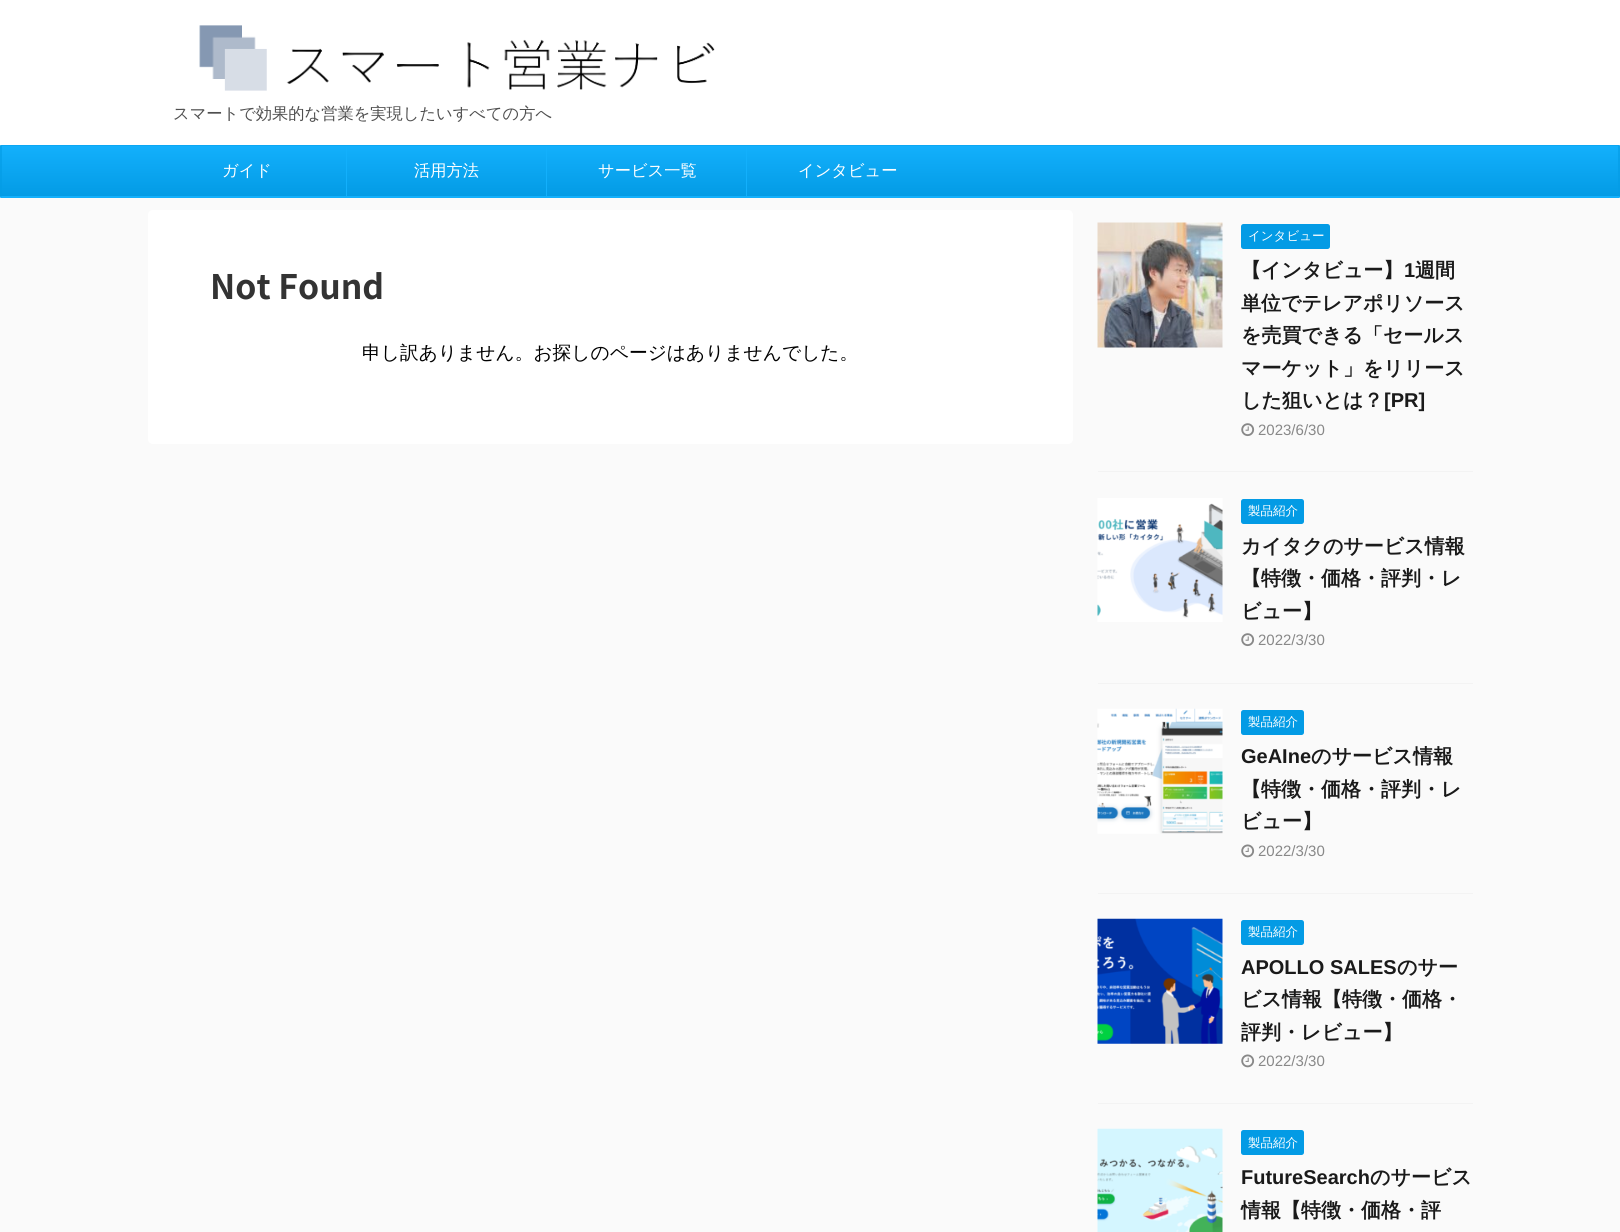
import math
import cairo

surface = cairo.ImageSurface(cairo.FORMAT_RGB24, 1620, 1232)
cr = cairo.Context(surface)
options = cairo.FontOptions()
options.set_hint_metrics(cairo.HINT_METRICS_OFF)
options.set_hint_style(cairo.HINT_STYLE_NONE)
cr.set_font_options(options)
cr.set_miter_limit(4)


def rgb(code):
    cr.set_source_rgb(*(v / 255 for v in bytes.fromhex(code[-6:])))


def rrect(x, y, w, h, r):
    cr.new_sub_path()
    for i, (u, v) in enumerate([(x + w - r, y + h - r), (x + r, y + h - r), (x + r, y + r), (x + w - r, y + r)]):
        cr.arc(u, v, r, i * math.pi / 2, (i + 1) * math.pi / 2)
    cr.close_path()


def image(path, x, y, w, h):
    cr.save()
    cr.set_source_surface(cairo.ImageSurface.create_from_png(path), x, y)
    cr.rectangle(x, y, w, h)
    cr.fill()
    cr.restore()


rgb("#fafafa")
cr.paint()
rgb("#ffffff")
cr.rectangle(0, 0, 1620, 145)
cr.fill()
image("img/1.png", 199, 25, 516, 66)
gradient = cairo.LinearGradient(810, 96, 810, 146)
gradient.add_color_stop_rgba(0, 0.075, 0.69, 0.988, 1)
gradient.add_color_stop_rgba(1, 0.012, 0.608, 0.898, 1)
cr.set_source(gradient)
cr.new_path()
cr.move_to(1, 145)
cr.line_to(1619, 145)
cr.curve_to(1619.5, 145, 1620, 145.5, 1620, 146)
cr.line_to(0, 146)
cr.curve_to(0, 145.5, 0.5, 145, 1, 145)
cr.close_path()
cr.fill()
gradient = cairo.LinearGradient(810, 146, 810, 196)
gradient.add_color_stop_rgba(0, 0.075, 0.69, 0.988, 1)
gradient.add_color_stop_rgba(1, 0.012, 0.608, 0.898, 1)
cr.set_source(gradient)
cr.rectangle(0, 146, 1620, 50)
cr.fill()
gradient = cairo.LinearGradient(810, 196, 810, 246)
gradient.add_color_stop_rgba(0, 0.075, 0.69, 0.988, 1)
gradient.add_color_stop_rgba(1, 0.012, 0.608, 0.898, 1)
cr.set_source(gradient)
cr.new_path()
cr.move_to(0, 196)
cr.line_to(1620, 196)
cr.line_to(1620, 197)
cr.curve_to(1620, 197.5, 1619.5, 198, 1619, 198)
cr.line_to(1, 198)
cr.curve_to(0.5, 198, 0, 197.5, 0, 197)
cr.close_path()
cr.fill()
cr.new_path()
cr.move_to(1, 146)
cr.line_to(1619, 146)
rgb("#13b0fc")
cr.set_line_width(1.2)
cr.stroke()
cr.new_path()
cr.move_to(1619, 146)
cr.line_to(1619, 196.5)
rgb("#039be5")
cr.stroke()
rgb("#13b0fc")
cr.rectangle(1618, 196, 1, 1)
cr.fill()
cr.new_path()
cr.move_to(1, 196.5)
cr.line_to(1, 146)
rgb("#039be5")
cr.stroke()
for x, y, w, h, color in [
    (346, 146, 1, 50, "#13b0fc"),
    (546, 146, 1, 50, "#13b0fc"),
    (746, 146, 1, 50, "#13b0fc"),
]:
    rgb(color)
    cr.rectangle(x, y, w, h)
    cr.fill()
rgb("#ffffff")
rrect(148, 210, 925, 234, 5)
cr.fill()
rgb("#f3f3f3")
cr.rectangle(1098, 471, 375, 1)
cr.fill()
image("img/2.png", 1097, 222, 126, 126)
rgb("#039be5")
rrect(1241, 224, 89, 25, 2.5)
cr.fill()
image("img/3.png", 1241, 423, 14, 14)
rgb("#f3f3f3")
cr.rectangle(1098, 683, 375, 1)
cr.fill()
image("img/4.png", 1097, 498, 126, 124)
rgb("#039be5")
rrect(1241, 499, 63, 25, 2.5)
cr.fill()
image("img/3.png", 1241, 633, 14, 14)
rgb("#f3f3f3")
cr.rectangle(1098, 893, 375, 1)
cr.fill()
image("img/5.png", 1097, 708, 126, 126)
rgb("#039be5")
rrect(1241, 710, 63, 25, 2.5)
cr.fill()
image("img/6.png", 1241, 844, 14, 14)
rgb("#f3f3f3")
cr.rectangle(1098, 1103, 375, 1)
cr.fill()
image("img/7.png", 1097, 918, 126, 126)
rgb("#039be5")
rrect(1241, 920, 63, 25, 2.5)
cr.fill()
image("img/6.png", 1241, 1054, 14, 14)
image("img/8.png", 1097, 1128, 126, 104)
rrect(1241, 1130, 63, 25, 2.5)
cr.fill()
cr.select_font_face("WenQuanYi Zen Hei Medium")
cr.set_font_size(16.25)
rgb("#4f4f4f")
cr.move_to(173, 119)
cr.show_text("スマートで効果的な営業を実現したいすべての方へ")
rgb("#ffffff")
for x, y, s in [
    (222, 176, "ガイド"),
    (414, 176, "活用方法"),
    (598, 176, "サービス一覧"),
    (798, 176, "インタビュー"),
]:
    cr.move_to(x, y)
    cr.show_text(s)
cr.select_font_face("Noto Sans JP", cairo.FONT_SLANT_NORMAL, cairo.FONT_WEIGHT_BOLD)
cr.set_font_size(33.75)
rgb("#333333")
cr.move_to(210, 299)
cr.show_text("Not Found")
cr.select_font_face("WenQuanYi Zen Hei Medium")
cr.set_font_size(18.75)
rgb("#000000")
cr.move_to(362, 359)
cr.show_text("申し訳ありません。お探しのページはありませんでした。")
cr.set_font_size(12.5)
rgb("#ffffff")
cr.move_to(1248, 240)
cr.show_text("インタビュー")
cr.select_font_face("WenQuanYi Zen Hei", cairo.FONT_SLANT_NORMAL, cairo.FONT_WEIGHT_BOLD)
cr.set_font_size(20)
rgb("#1a1a1a")
cr.move_to(1241, 277)
cr.show_text("【インタビュー】")
cr.select_font_face("Liberation Sans", cairo.FONT_SLANT_NORMAL, cairo.FONT_WEIGHT_BOLD)
cr.move_to(1404, 277)
cr.show_text("1")
cr.select_font_face("WenQuanYi Zen Hei", cairo.FONT_SLANT_NORMAL, cairo.FONT_WEIGHT_BOLD)
for x, y, s in [
    (1415, 277, "週間"),
    (1241, 310, "単位でテレアポリソース"),
    (1241, 342, "を売買できる「セールス"),
    (1241, 375, "マーケット」をリリース"),
    (1241, 407, "した狙いとは？"),
]:
    cr.move_to(x, y)
    cr.show_text(s)
cr.select_font_face("Liberation Sans", cairo.FONT_SLANT_NORMAL, cairo.FONT_WEIGHT_BOLD)
cr.move_to(1384, 407)
cr.show_text("[PR]")
cr.select_font_face("Liberation Sans")
cr.set_font_size(15)
rgb("#888888")
cr.move_to(1258, 435)
cr.show_text("2023/6/30")
cr.select_font_face("WenQuanYi Zen Hei Medium")
cr.set_font_size(12.5)
rgb("#ffffff")
cr.move_to(1248, 515)
cr.show_text("製品紹介")
cr.select_font_face("WenQuanYi Zen Hei", cairo.FONT_SLANT_NORMAL, cairo.FONT_WEIGHT_BOLD)
cr.set_font_size(20)
rgb("#1a1a1a")
for x, y, s in [
    (1241, 553, "カイタクのサービス情報"),
    (1241, 585, "【特徴・価格・評判・レ"),
    (1241, 618, "ビュー】"),
]:
    cr.move_to(x, y)
    cr.show_text(s)
cr.select_font_face("Liberation Sans")
cr.set_font_size(15)
rgb("#888888")
cr.move_to(1258, 645)
cr.show_text("2022/3/30")
cr.select_font_face("WenQuanYi Zen Hei Medium")
cr.set_font_size(12.5)
rgb("#ffffff")
cr.move_to(1248, 726)
cr.show_text("製品紹介")
cr.select_font_face("Liberation Sans", cairo.FONT_SLANT_NORMAL, cairo.FONT_WEIGHT_BOLD)
cr.set_font_size(20)
rgb("#1a1a1a")
cr.move_to(1241, 763)
cr.show_text("GeAIne")
cr.select_font_face("WenQuanYi Zen Hei", cairo.FONT_SLANT_NORMAL, cairo.FONT_WEIGHT_BOLD)
for x, y, s in [
    (1311, 763, "のサービス情報"),
    (1241, 796, "【特徴・価格・評判・レ"),
    (1241, 828, "ビュー】"),
]:
    cr.move_to(x, y)
    cr.show_text(s)
cr.select_font_face("Liberation Sans")
cr.set_font_size(15)
rgb("#888888")
cr.move_to(1258, 856)
cr.show_text("2022/3/30")
cr.select_font_face("WenQuanYi Zen Hei Medium")
cr.set_font_size(12.5)
rgb("#ffffff")
cr.move_to(1248, 936)
cr.show_text("製品紹介")
cr.select_font_face("Liberation Sans", cairo.FONT_SLANT_NORMAL, cairo.FONT_WEIGHT_BOLD)
cr.set_font_size(20)
rgb("#1a1a1a")
cr.move_to(1241, 974)
cr.show_text("APOLLO SALES")
cr.select_font_face("WenQuanYi Zen Hei", cairo.FONT_SLANT_NORMAL, cairo.FONT_WEIGHT_BOLD)
for x, y, s in [
    (1397, 974, "のサー"),
    (1241, 1006, "ビス情報【特徴・価格・"),
    (1241, 1039, "評判・レビュー】"),
]:
    cr.move_to(x, y)
    cr.show_text(s)
cr.select_font_face("Liberation Sans")
cr.set_font_size(15)
rgb("#888888")
cr.move_to(1258, 1066)
cr.show_text("2022/3/30")
cr.select_font_face("WenQuanYi Zen Hei Medium")
cr.set_font_size(12.5)
rgb("#ffffff")
cr.move_to(1248, 1147)
cr.show_text("製品紹介")
cr.select_font_face("Liberation Sans", cairo.FONT_SLANT_NORMAL, cairo.FONT_WEIGHT_BOLD)
cr.set_font_size(20)
rgb("#1a1a1a")
cr.move_to(1241, 1184)
cr.show_text("FutureSearch")
cr.select_font_face("WenQuanYi Zen Hei", cairo.FONT_SLANT_NORMAL, cairo.FONT_WEIGHT_BOLD)
cr.move_to(1370, 1184)
cr.show_text("のサービス")
cr.move_to(1241, 1217)
cr.show_text("情報【特徴・価格・評")
surface.write_to_png("page.png")
